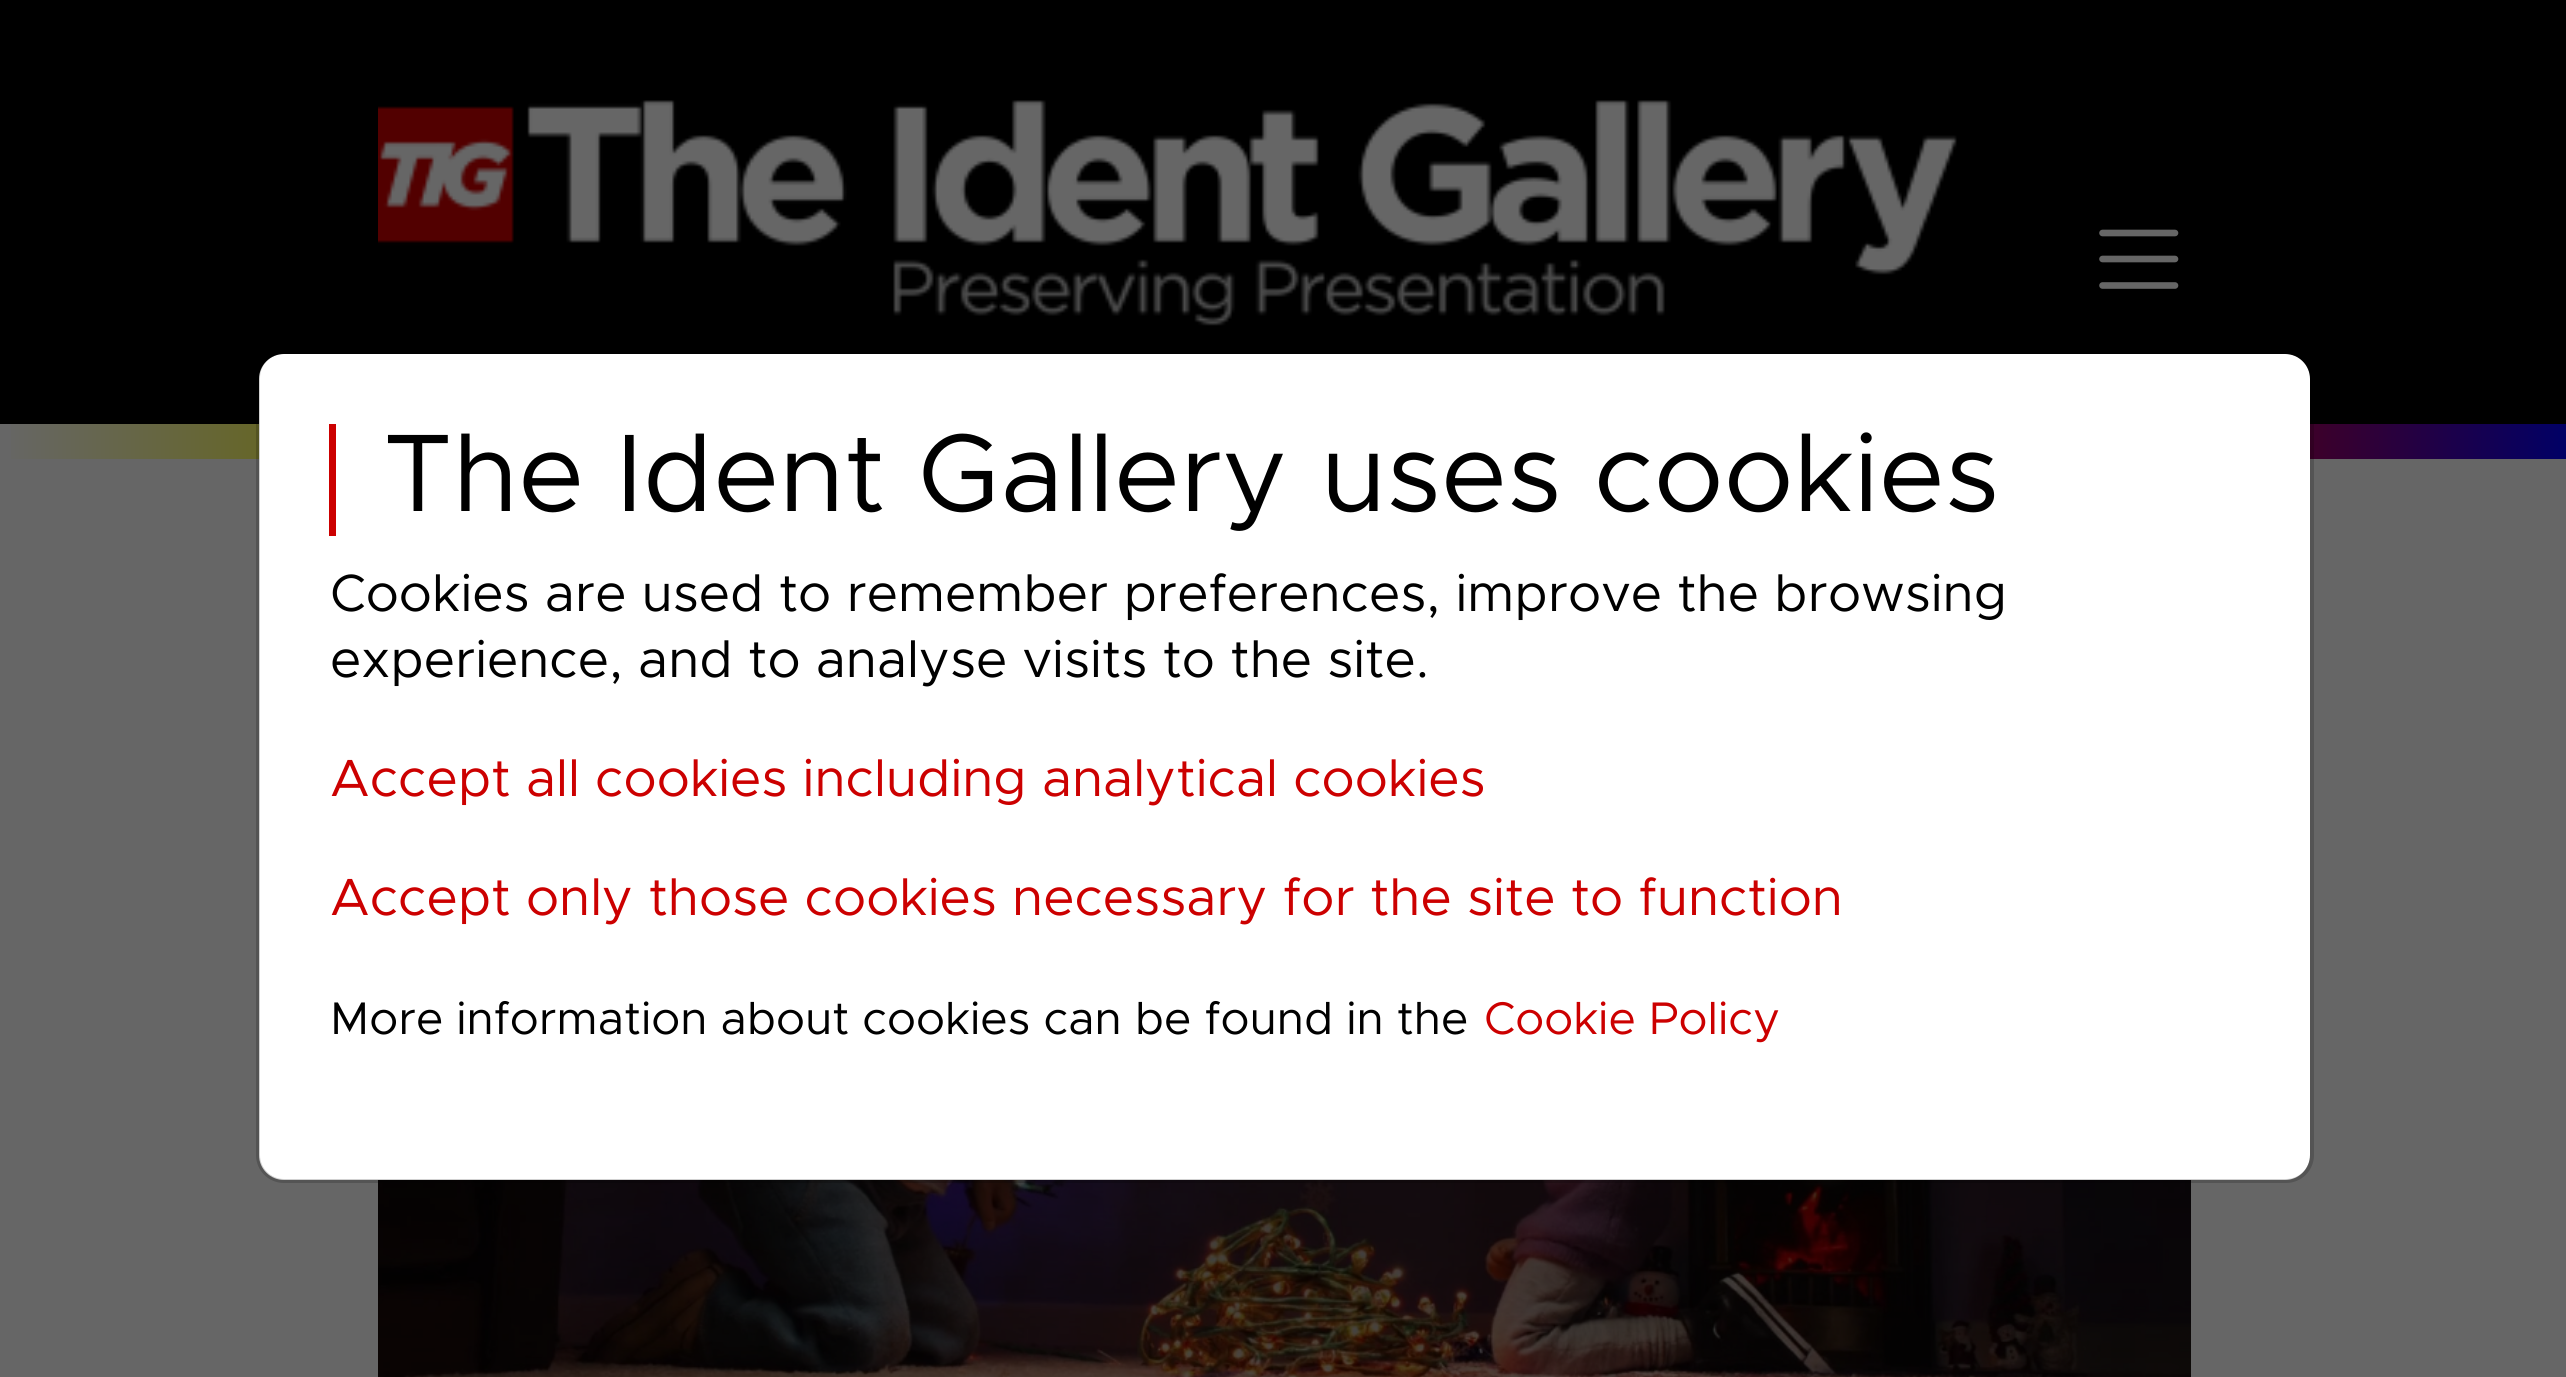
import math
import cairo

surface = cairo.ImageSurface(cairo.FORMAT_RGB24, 2566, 1377)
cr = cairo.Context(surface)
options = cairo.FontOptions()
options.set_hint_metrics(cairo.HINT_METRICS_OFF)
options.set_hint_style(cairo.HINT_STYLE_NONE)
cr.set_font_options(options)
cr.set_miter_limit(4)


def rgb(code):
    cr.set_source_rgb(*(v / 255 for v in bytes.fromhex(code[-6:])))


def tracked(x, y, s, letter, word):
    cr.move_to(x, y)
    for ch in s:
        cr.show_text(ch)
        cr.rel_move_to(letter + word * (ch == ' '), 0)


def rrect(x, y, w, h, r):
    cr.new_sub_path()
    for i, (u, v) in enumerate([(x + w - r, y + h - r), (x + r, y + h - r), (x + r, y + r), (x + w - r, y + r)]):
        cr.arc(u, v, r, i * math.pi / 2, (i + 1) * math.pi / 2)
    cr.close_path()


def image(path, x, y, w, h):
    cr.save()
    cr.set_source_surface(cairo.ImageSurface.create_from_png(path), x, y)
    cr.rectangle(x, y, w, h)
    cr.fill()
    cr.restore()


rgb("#666666")
cr.paint()
rgb("#000000")
cr.rectangle(0, 0, 2566, 424)
cr.fill()
image("img/1.png", 378, 100, 1579, 226)
cr.new_path()
cr.move_to(2102.5, 233)
cr.line_to(2175, 233)
cr.move_to(2102.5, 259)
cr.line_to(2175, 259)
cr.move_to(2102.5, 285.5)
cr.line_to(2175, 285.5)
rgb("#666666")
cr.set_line_width(6.6)
cr.set_line_cap(cairo.LINE_CAP_ROUND)
cr.stroke()
gradient = cairo.LinearGradient(0, 441, 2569, 441)
gradient.add_color_stop_rgba(0, 0.4, 0.4, 0.4, 1)
gradient.add_color_stop_rgba(0.17, 0.4, 0.4, 0, 1)
gradient.add_color_stop_rgba(0.33, 0, 0.4, 0.4, 1)
gradient.add_color_stop_rgba(0.5, 0, 0.4, 0, 1)
gradient.add_color_stop_rgba(0.67, 0.4, 0, 0.4, 1)
gradient.add_color_stop_rgba(0.83, 0.4, 0, 0, 1)
gradient.add_color_stop_rgba(1, 0, 0, 0.4, 1)
cr.set_source(gradient)
cr.rectangle(11, 424, 2555, 35)
cr.fill()
rgb("#ffffff")
rrect(259, 354, 2051, 826, 25)
cr.fill()
image("img/2.png", 378, 1180, 1813, 197)
rrect(258, 352, 2054, 829, 26)
cr.set_source_rgba(0, 0, 0, 0.18)
cr.set_line_width(4)
cr.set_line_cap(cairo.LINE_CAP_BUTT)
cr.stroke()
rgb("#cc0000")
cr.rectangle(329, 424, 7, 112)
cr.fill()
cr.select_font_face("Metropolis")
cr.set_font_size(110.75)
rgb("#000000")
cr.move_to(383, 511)
cr.show_text("The Ident Gallery uses cookies")
cr.set_font_size(52.5)
cr.move_to(330, 611)
cr.show_text("Cookies are used to remember preferences, improve the browsing")
cr.move_to(330, 677)
cr.show_text("experience, and to analyse visits to the site.")
rgb("#cc0000")
cr.move_to(330, 796)
cr.show_text("Accept all cookies including analytical cookies")
cr.move_to(330, 915)
cr.show_text("Accept only those cookies necessary for the site to function")
cr.set_font_size(45.9)
rgb("#000000")
tracked(330, 1034, "More information about cookies can be found in the", 0, -0.25)
rgb("#cc0000")
cr.move_to(1484, 1034)
cr.show_text("Cookie Policy")
surface.write_to_png("page.png")
